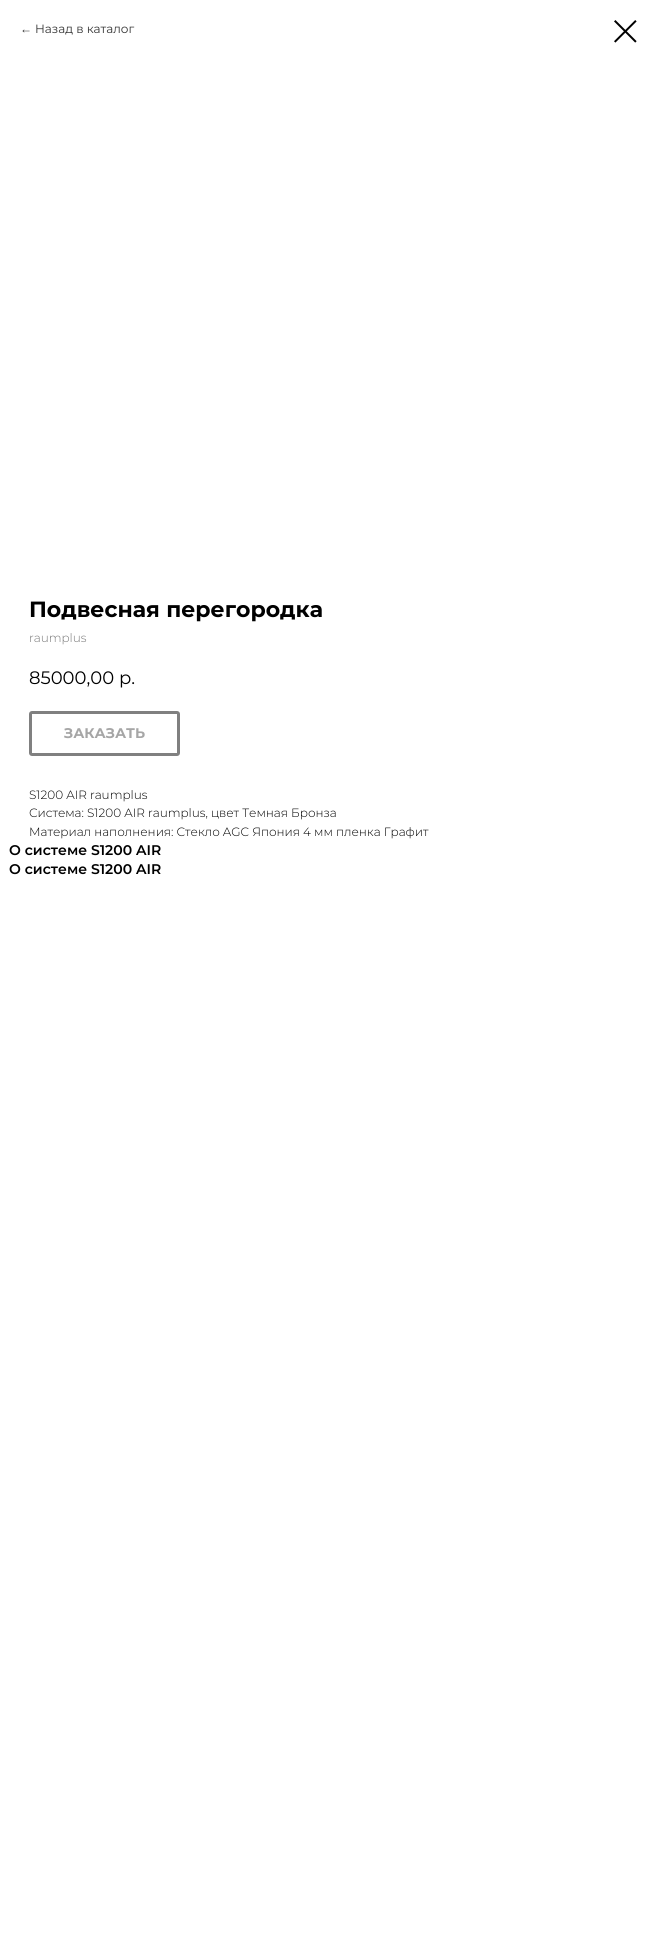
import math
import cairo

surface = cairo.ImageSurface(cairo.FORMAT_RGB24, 657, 1935)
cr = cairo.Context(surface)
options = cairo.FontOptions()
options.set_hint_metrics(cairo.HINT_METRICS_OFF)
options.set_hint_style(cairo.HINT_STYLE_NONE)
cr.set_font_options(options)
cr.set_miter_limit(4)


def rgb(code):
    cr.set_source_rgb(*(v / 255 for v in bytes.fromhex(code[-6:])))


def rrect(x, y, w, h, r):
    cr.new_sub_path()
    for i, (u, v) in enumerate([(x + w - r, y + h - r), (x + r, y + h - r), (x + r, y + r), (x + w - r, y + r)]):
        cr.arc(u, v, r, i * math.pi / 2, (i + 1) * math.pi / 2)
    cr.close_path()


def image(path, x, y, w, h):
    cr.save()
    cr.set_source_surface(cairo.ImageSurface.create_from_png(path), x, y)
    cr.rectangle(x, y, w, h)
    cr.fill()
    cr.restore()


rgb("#ffffff")
cr.paint()
image("img/1.png", 614, 20, 23, 23)
rrect(30.5, 712.5, 148, 42, 1.5)
rgb("#808080")
cr.set_line_width(3)
cr.stroke()
cr.select_font_face("Liberation Sans")
cr.set_font_size(12)
rgb("#333333")
cr.move_to(20, 33)
cr.show_text("←")
cr.select_font_face("Montserrat")
cr.move_to(35, 33)
cr.show_text("Назад в каталог")
cr.select_font_face("Montserrat", cairo.FONT_SLANT_NORMAL, cairo.FONT_WEIGHT_BOLD)
cr.set_font_size(22)
rgb("#000000")
cr.move_to(29, 617)
cr.show_text("Подвесная перегородка")
cr.select_font_face("Montserrat Light")
cr.set_font_size(12)
rgb("#777777")
cr.move_to(29, 642)
cr.show_text("raumplus")
cr.select_font_face("Montserrat")
cr.set_font_size(18)
rgb("#000000")
cr.move_to(29, 684)
cr.show_text("85000,00")
cr.move_to(119, 684)
cr.show_text("р.")
cr.select_font_face("Montserrat", cairo.FONT_SLANT_NORMAL, cairo.FONT_WEIGHT_BOLD)
cr.set_font_size(14)
rgb("#a6a6a6")
cr.move_to(64, 738)
cr.show_text("ЗАКАЗАТЬ")
cr.select_font_face("Montserrat Light")
cr.set_font_size(12)
rgb("#000000")
for x, y, s in [
    (29, 799, "S1200 AIR raumplus"),
    (29, 817, "Система: S1200 AIR raumplus, цвет Темная Бронза"),
    (29, 836, "Материал наполнения: Стекло AGC Япония 4 мм пленка Графит"),
]:
    cr.move_to(x, y)
    cr.show_text(s)
cr.select_font_face("Montserrat SemiBold")
cr.set_font_size(14)
cr.move_to(9, 855)
cr.show_text("О системе S1200 AIR")
cr.move_to(9, 874)
cr.show_text("О системе S1200 AIR")
surface.write_to_png("page.png")
